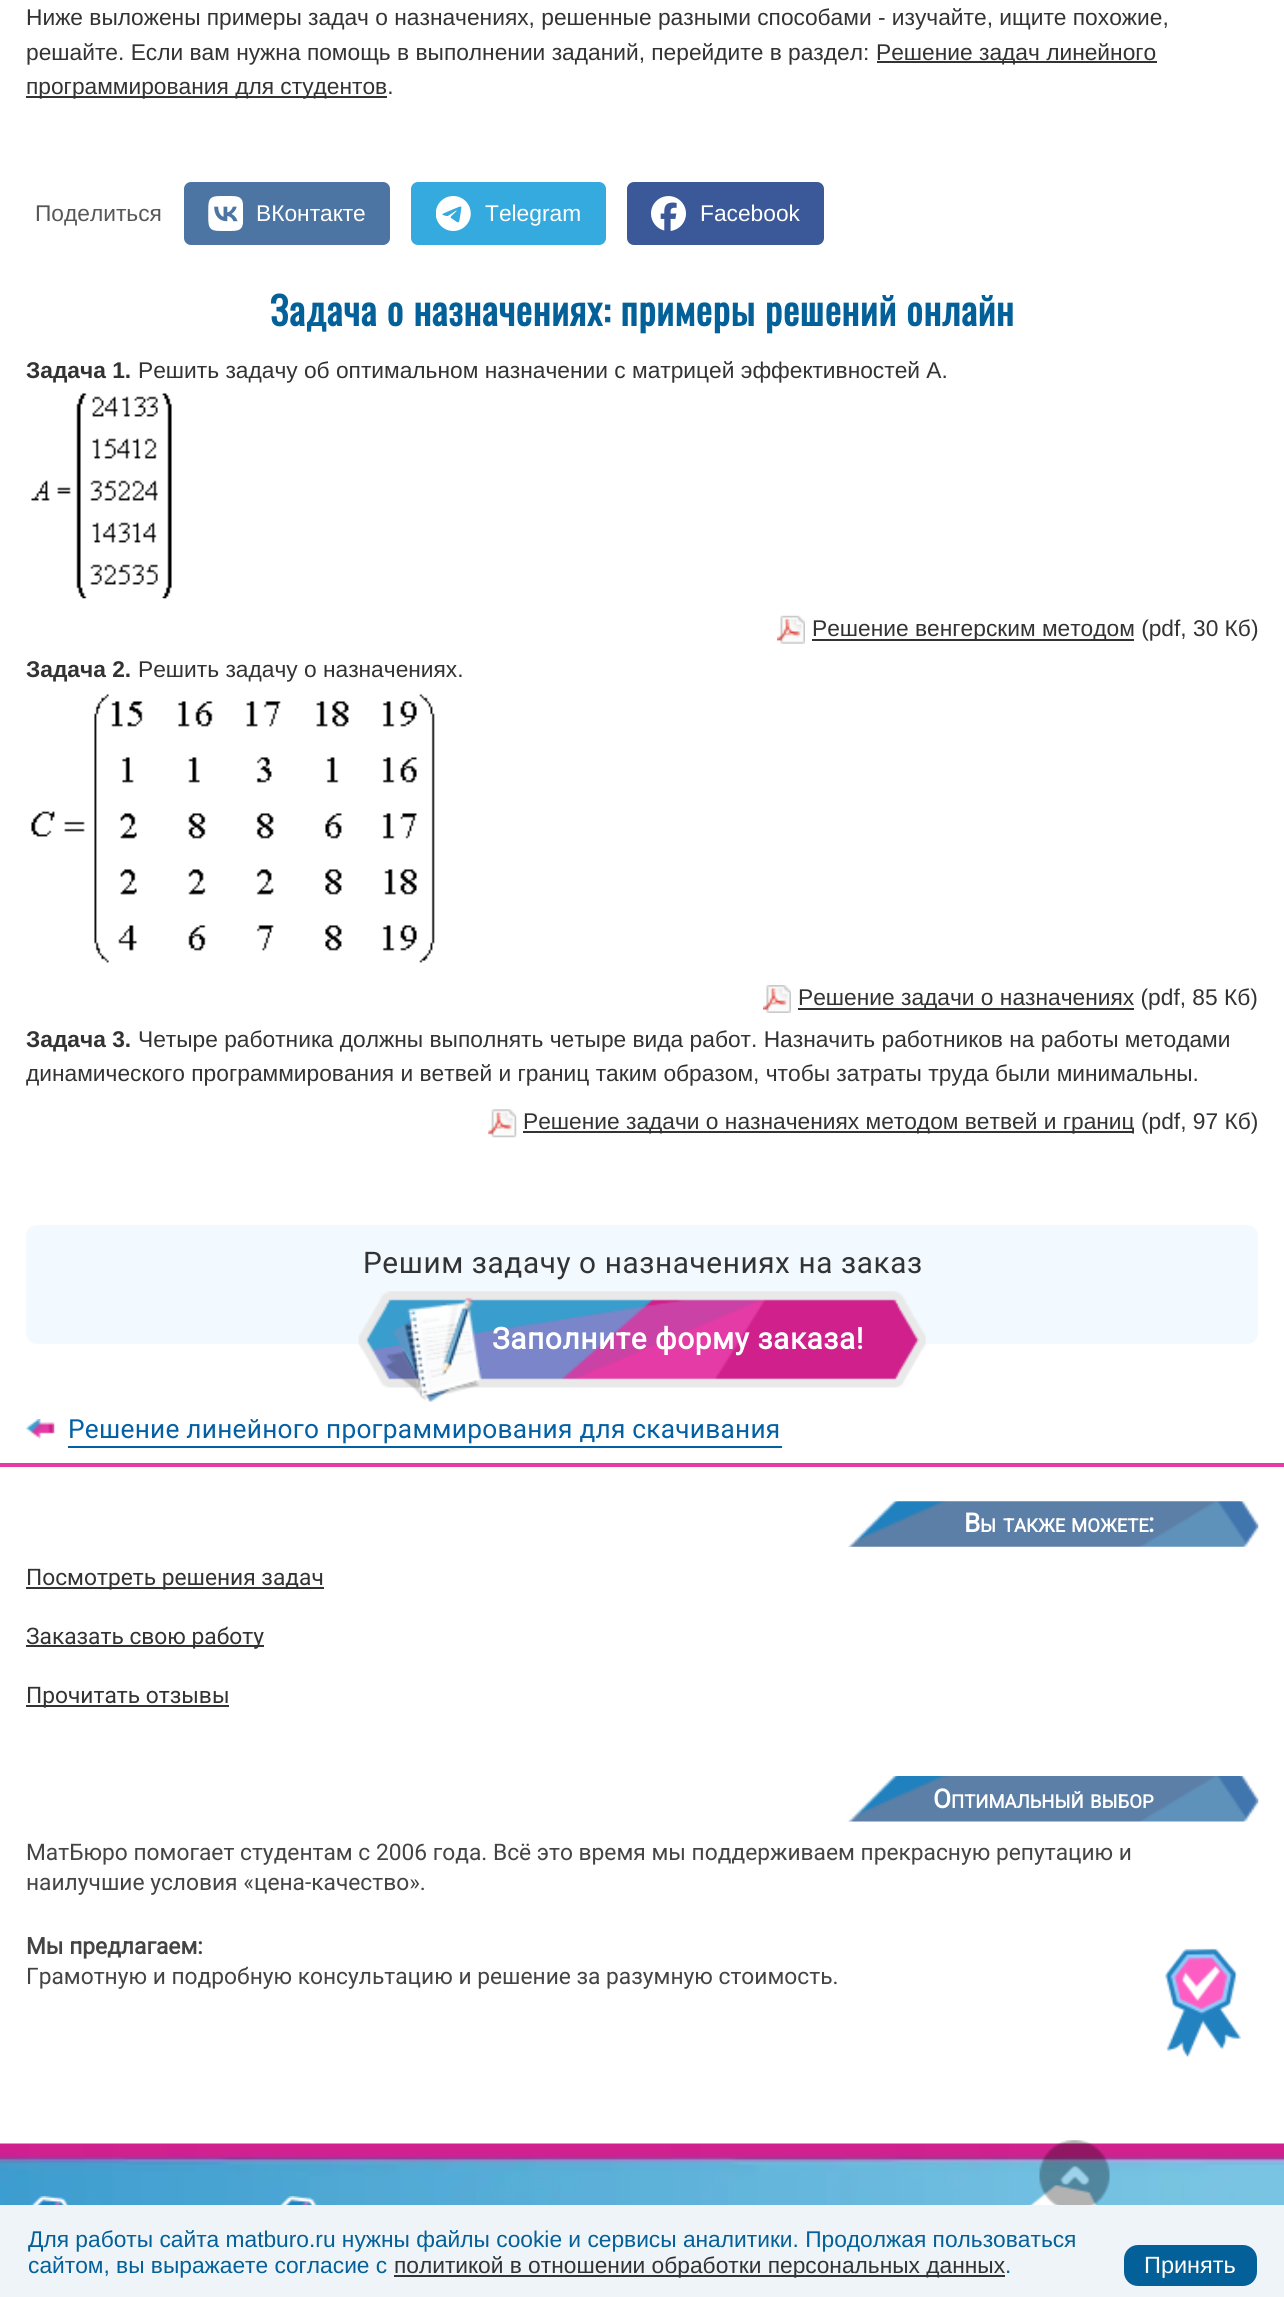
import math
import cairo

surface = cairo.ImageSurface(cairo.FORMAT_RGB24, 1284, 2297)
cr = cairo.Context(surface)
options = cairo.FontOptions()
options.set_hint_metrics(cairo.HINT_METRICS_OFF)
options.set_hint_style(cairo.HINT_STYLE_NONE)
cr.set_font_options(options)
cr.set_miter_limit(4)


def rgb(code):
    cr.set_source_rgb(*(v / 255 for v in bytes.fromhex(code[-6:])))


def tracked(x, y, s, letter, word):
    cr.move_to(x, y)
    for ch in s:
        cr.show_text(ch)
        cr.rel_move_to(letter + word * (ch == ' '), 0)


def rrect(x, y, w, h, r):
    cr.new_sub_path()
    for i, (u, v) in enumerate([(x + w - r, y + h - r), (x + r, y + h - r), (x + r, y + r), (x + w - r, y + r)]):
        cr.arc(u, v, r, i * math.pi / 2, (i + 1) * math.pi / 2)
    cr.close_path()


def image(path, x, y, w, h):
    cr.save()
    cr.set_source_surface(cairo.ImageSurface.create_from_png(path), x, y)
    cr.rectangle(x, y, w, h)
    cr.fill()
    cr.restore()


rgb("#ffffff")
cr.paint()
rgb("#333333")
cr.rectangle(877, 61, 280, 2)
cr.fill()
cr.rectangle(26, 96, 361, 2)
cr.fill()
rgb("#4c75a3")
rrect(184, 182, 206, 63, 7)
cr.fill()
image("img/1.png", 208, 196, 35, 35)
rgb("#34aadf")
rrect(411, 182, 195, 63, 7)
cr.fill()
image("img/2.png", 436, 196, 35, 35)
rgb("#3b5998")
rrect(627, 182, 197, 63, 7)
cr.fill()
image("img/3.png", 651, 196, 35, 35)
image("img/4.png", 31, 393, 141, 206)
image("img/5.png", 777, 615, 28, 29)
rgb("#333333")
cr.rectangle(812, 639, 322, 2)
cr.fill()
image("img/6.png", 31, 694, 404, 269)
image("img/7.png", 763, 985, 28, 28)
cr.rectangle(798, 1008, 336, 2)
cr.fill()
image("img/8.png", 488, 1109, 29, 29)
cr.rectangle(523, 1131, 611, 2)
cr.fill()
rgb("#f2f9ff")
rrect(26, 1225, 1232, 119, 11)
cr.fill()
image("img/9.png", 358, 1291, 568, 111)
image("img/10.png", 26, 1419, 29, 20)
rgb("#0360a4")
cr.rectangle(68, 1446, 714, 2)
cr.fill()
rgb("#e53ba6")
cr.rectangle(0, 1463, 1284, 4)
cr.fill()
image("img/11.png", 847, 1501, 412, 46)
for x, y, w, h, color in [
    (26, 1587, 298, 2, "#333333"),
    (26, 1645, 238, 2, "#333333"),
    (26, 1705, 203, 2, "#333333"),
]:
    rgb(color)
    cr.rectangle(x, y, w, h)
    cr.fill()
image("img/12.png", 847, 1776, 412, 46)
image("img/13.png", 1165, 1948, 76, 109)
image("img/14.png", 0, 2143, 1284, 62)
image("img/15.png", 31, 2196, 38, 9)
image("img/16.png", 279, 2196, 39, 9)
image("img/17.png", 1029, 2185, 69, 20)
image("img/18.png", 1039, 2140, 71, 65)
rgb("#eff4f8")
cr.rectangle(0, 2205, 1284, 92)
cr.fill()
rgb("#333333")
cr.rectangle(394, 2275, 611, 2)
cr.fill()
rgb("#036098")
rrect(1124, 2245, 133, 41, 14)
cr.fill()
cr.select_font_face("Liberation Sans")
cr.set_font_size(22.75)
rgb("#333333")
for x, y, s in [
    (26, 25, "Ниже выложены примеры задач о назначениях, решенные разными способами - изучайте, ищите похожие,"),
    (26, 60, "решайте. Если вам нужна помощь в выполнении заданий, перейдите в раздел:"),
    (876, 60, "Решение задач линейного"),
    (26, 94, "программирования для студентов."),
]:
    cr.move_to(x, y)
    cr.show_text(s)
rgb("#575757")
cr.move_to(35, 221)
cr.show_text("Поделиться")
rgb("#ffffff")
for x, y, s in [
    (256, 221, "ВКонтакте"),
    (485, 221, "Telegram"),
    (700, 221, "Facebook"),
]:
    cr.move_to(x, y)
    cr.show_text(s)
cr.select_font_face("Oswald", cairo.FONT_SLANT_NORMAL, cairo.FONT_WEIGHT_BOLD)
cr.set_font_size(38.5)
rgb("#036098")
tracked(270, 326, "Задача о назначениях: примеры решений онлайн", 0.75, 0)
cr.select_font_face("Liberation Sans", cairo.FONT_SLANT_NORMAL, cairo.FONT_WEIGHT_BOLD)
cr.set_font_size(22.75)
rgb("#333333")
cr.move_to(26, 378)
cr.show_text("Задача 1.")
cr.select_font_face("Liberation Sans")
cr.move_to(138, 378)
cr.show_text("Решить задачу об оптимальном назначении с матрицей эффективностей A.")
cr.move_to(812, 636)
cr.show_text("Решение венгерским методом (pdf, 30 Кб)")
cr.select_font_face("Liberation Sans", cairo.FONT_SLANT_NORMAL, cairo.FONT_WEIGHT_BOLD)
cr.move_to(26, 677)
cr.show_text("Задача 2.")
cr.select_font_face("Liberation Sans")
cr.move_to(138, 677)
cr.show_text("Решить задачу о назначениях.")
cr.move_to(798, 1005)
cr.show_text("Решение задачи о назначениях (pdf, 85 Кб)")
cr.select_font_face("Liberation Sans", cairo.FONT_SLANT_NORMAL, cairo.FONT_WEIGHT_BOLD)
cr.move_to(26, 1047)
cr.show_text("Задача 3.")
cr.select_font_face("Liberation Sans")
for x, y, s in [
    (138, 1047, "Четыре работника должны выполнять четыре вида работ. Назначить работников на работы методами"),
    (26, 1081, "динамического программирования и ветвей и границ таким образом, чтобы затраты труда были минимальны."),
    (523, 1129, "Решение задачи о назначениях методом ветвей и границ (pdf, 97 Кб)"),
]:
    cr.move_to(x, y)
    cr.show_text(s)
cr.select_font_face("Roboto")
cr.set_font_size(29.75)
tracked(363, 1273, "Решим задачу о назначениях на заказ", 0.6, 0)
cr.select_font_face("Roboto", cairo.FONT_SLANT_NORMAL, cairo.FONT_WEIGHT_BOLD)
rgb("#ffffff")
tracked(492, 1349, "Заполните форму заказа!", 0.6, 0)
cr.select_font_face("Roboto")
cr.set_font_size(26.25)
rgb("#0360a4")
tracked(68, 1438, "Решение линейного программирования для скачивания", 0.25, 0)
cr.select_font_face("Roboto", cairo.FONT_SLANT_NORMAL, cairo.FONT_WEIGHT_BOLD)
rgb("#ffffff")
cr.move_to(964, 1532)
cr.show_text("В")
cr.set_font_size(18.5)
for x, y, s in [
    (980, 1532, "Ы"),
    (1003, 1532, "ТАКЖЕ"),
    (1071, 1532, "МОЖЕТЕ"),
]:
    cr.move_to(x, y)
    cr.show_text(s)
cr.set_font_size(26.25)
cr.move_to(1148, 1532)
cr.show_text(":")
cr.select_font_face("Roboto")
cr.set_font_size(22.75)
rgb("#333333")
for x, y, s in [
    (26, 1585, "Посмотреть решения задач"),
    (26, 1644, "Заказать свою работу"),
    (26, 1703, "Прочитать отзывы"),
]:
    cr.move_to(x, y)
    cr.show_text(s)
cr.select_font_face("Roboto", cairo.FONT_SLANT_NORMAL, cairo.FONT_WEIGHT_BOLD)
cr.set_font_size(26.25)
rgb("#ffffff")
cr.move_to(933, 1808)
cr.show_text("О")
cr.set_font_size(18.5)
cr.move_to(951, 1808)
cr.show_text("ПТИМАЛЬНЫЙ")
cr.move_to(1090, 1808)
cr.show_text("ВЫБОР")
cr.select_font_face("Roboto")
cr.set_font_size(22.75)
rgb("#444444")
cr.move_to(26, 1860)
cr.show_text("МатБюро помогает студентам с 2006 года. Всё это время мы поддерживаем прекрасную репутацию и")
cr.move_to(26, 1890)
cr.show_text("наилучшие условия «цена-качество».")
cr.select_font_face("Roboto", cairo.FONT_SLANT_NORMAL, cairo.FONT_WEIGHT_BOLD)
cr.move_to(26, 1954)
cr.show_text("Мы предлагаем:")
cr.select_font_face("Roboto")
cr.move_to(26, 1984)
cr.show_text("Грамотную и подробную консультацию и решение за разумную стоимость.")
cr.select_font_face("Liberation Sans")
rgb("#036098")
cr.move_to(28, 2247)
cr.show_text("Для работы сайта matburo.ru нужны файлы cookie и сервисы аналитики. Продолжая пользоваться")
cr.move_to(28, 2273)
cr.show_text("сайтом, вы выражаете согласие с")
rgb("#333333")
cr.move_to(394, 2273)
cr.show_text("политикой в отношении обработки персональных данных")
rgb("#036098")
cr.move_to(1005, 2273)
cr.show_text(".")
cr.set_font_size(23.5)
rgb("#ffffff")
cr.move_to(1144, 2273)
cr.show_text("Принять")
surface.write_to_png("page.png")
